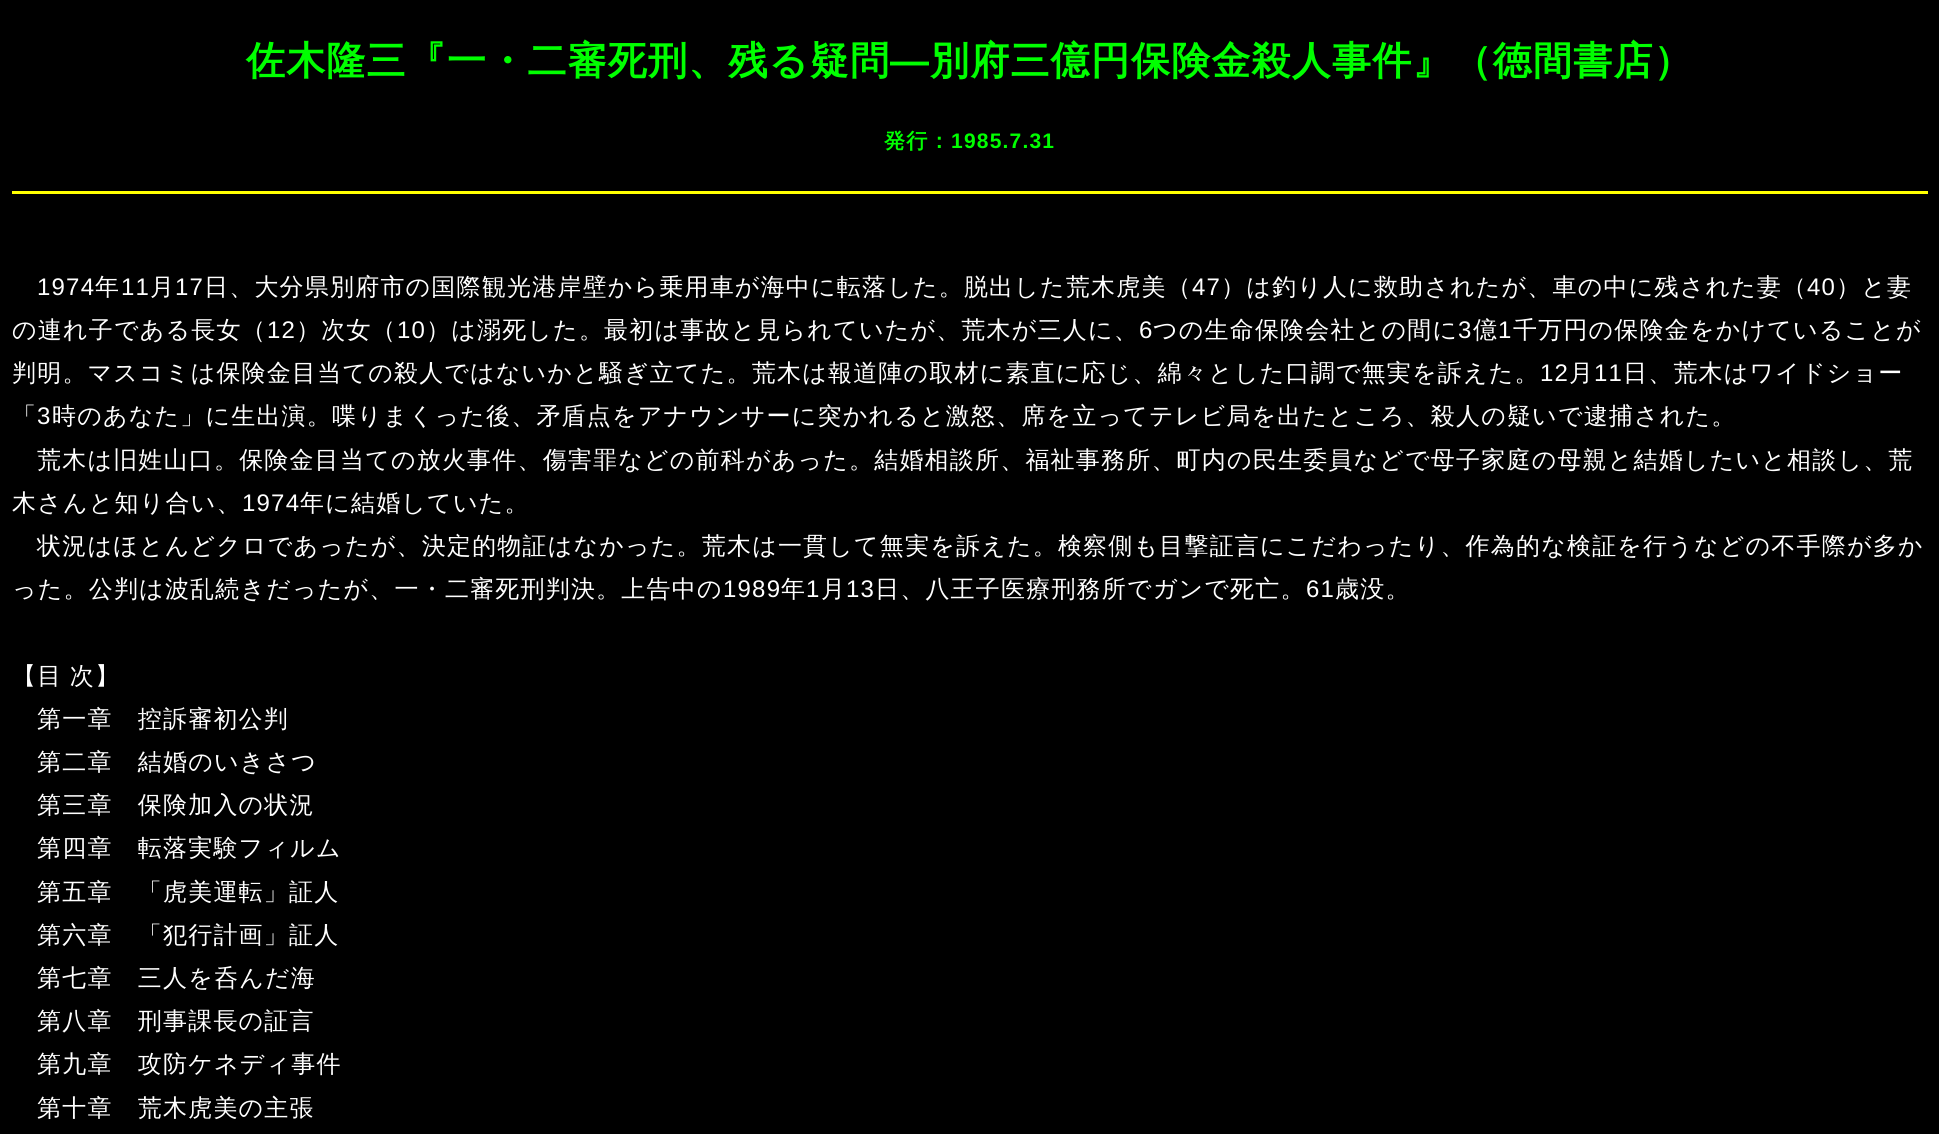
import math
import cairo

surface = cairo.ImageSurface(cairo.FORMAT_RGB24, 1939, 1134)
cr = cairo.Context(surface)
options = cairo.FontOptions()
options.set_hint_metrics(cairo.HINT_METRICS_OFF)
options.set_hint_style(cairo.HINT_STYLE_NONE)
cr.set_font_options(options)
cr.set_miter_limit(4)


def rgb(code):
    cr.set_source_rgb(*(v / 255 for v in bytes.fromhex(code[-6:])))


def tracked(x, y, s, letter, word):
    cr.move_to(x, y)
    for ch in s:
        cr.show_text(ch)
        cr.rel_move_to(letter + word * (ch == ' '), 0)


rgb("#000000")
cr.paint()
rgb("#ffff00")
cr.rectangle(12, 191, 1916, 3)
cr.fill()
cr.select_font_face("WenQuanYi Zen Hei", cairo.FONT_SLANT_NORMAL, cairo.FONT_WEIGHT_BOLD)
cr.set_font_size(39)
rgb("#00ff00")
tracked(246, 74, "佐木隆三『一・二審死刑、残る疑問", 1.2, 0)
cr.select_font_face("Liberation Sans", cairo.FONT_SLANT_NORMAL, cairo.FONT_WEIGHT_BOLD)
tracked(890, 74, "―", 1.2, 0)
cr.select_font_face("WenQuanYi Zen Hei", cairo.FONT_SLANT_NORMAL, cairo.FONT_WEIGHT_BOLD)
tracked(930, 74, "別府三億円保険金殺人事件』（徳間書店）", 1.2, 0)
cr.set_font_size(21)
tracked(884, 148, "発行：", 1.2, 0)
cr.select_font_face("Liberation Sans", cairo.FONT_SLANT_NORMAL, cairo.FONT_WEIGHT_BOLD)
tracked(951, 148, "1985.7.31", 1.2, 0)
cr.select_font_face("Liberation Sans")
cr.set_font_size(24)
rgb("#ffffff")
tracked(37, 295, "1974", 1.2, 0)
cr.select_font_face("WenQuanYi Zen Hei Medium")
tracked(95, 295, "年", 1.2, 0)
cr.select_font_face("Liberation Sans")
tracked(121, 295, "11", 1.2, 0)
cr.select_font_face("WenQuanYi Zen Hei Medium")
tracked(150, 295, "月", 1.2, 0)
cr.select_font_face("Liberation Sans")
tracked(175, 295, "17", 1.2, 0)
cr.select_font_face("WenQuanYi Zen Hei Medium")
tracked(204, 295, "日、大分県別府市の国際観光港岸壁から乗用車が海中に転落した。脱出した荒木虎美（", 1.2, 0)
cr.select_font_face("Liberation Sans")
tracked(1192, 295, "47", 1.2, 0)
cr.select_font_face("WenQuanYi Zen Hei Medium")
tracked(1221, 295, "）は釣り人に救助されたが、車の中に残された妻（", 1.2, 0)
cr.select_font_face("Liberation Sans")
tracked(1807, 295, "40", 1.2, 0)
cr.select_font_face("WenQuanYi Zen Hei Medium")
tracked(1836, 295, "）と妻", 1.2, 0)
tracked(12, 338, "の連れ子である長女（", 1.2, 0)
cr.select_font_face("Liberation Sans")
tracked(267, 338, "12", 1.2, 0)
cr.select_font_face("WenQuanYi Zen Hei Medium")
tracked(296, 338, "）次女（", 1.2, 0)
cr.select_font_face("Liberation Sans")
tracked(397, 338, "10", 1.2, 0)
cr.select_font_face("WenQuanYi Zen Hei Medium")
tracked(426, 338, "）は溺死した。最初は事故と見られていたが、荒木が三人に、", 1.2, 0)
cr.select_font_face("Liberation Sans")
tracked(1139, 338, "6", 1.2, 0)
cr.select_font_face("WenQuanYi Zen Hei Medium")
tracked(1153, 338, "つの生命保険会社との間に", 1.2, 0)
cr.select_font_face("Liberation Sans")
tracked(1458, 338, "3", 1.2, 0)
cr.select_font_face("WenQuanYi Zen Hei Medium")
tracked(1473, 338, "億", 1.2, 0)
cr.select_font_face("Liberation Sans")
tracked(1498, 338, "1", 1.2, 0)
cr.select_font_face("WenQuanYi Zen Hei Medium")
tracked(1513, 338, "千万円の保険金をかけていることが", 1.2, 0)
tracked(12, 381, "判明。マスコミは保険金目当ての殺人ではないかと騒ぎ立てた。荒木は報道陣の取材に素直に応じ、綿々とした口調で無実を訴えた。", 1.2, 0)
cr.select_font_face("Liberation Sans")
tracked(1540, 381, "12", 1.2, 0)
cr.select_font_face("WenQuanYi Zen Hei Medium")
tracked(1569, 381, "月", 1.2, 0)
cr.select_font_face("Liberation Sans")
tracked(1594, 381, "11", 1.2, 0)
cr.select_font_face("WenQuanYi Zen Hei Medium")
tracked(1623, 381, "日、荒木はワイドショー", 1.2, 0)
tracked(12, 424, "「", 1.2, 0)
cr.select_font_face("Liberation Sans")
tracked(37, 424, "3", 1.2, 0)
cr.select_font_face("WenQuanYi Zen Hei Medium")
for x, y, s in [
    (52, 424, "時のあなた」に生出演。喋りまくった後、矛盾点をアナウンサーに突かれると激怒、席を立ってテレビ局を出たところ、殺人の疑いで逮捕された。"),
    (37, 468, "荒木は旧姓山口。保険金目当ての放火事件、傷害罪などの前科があった。結婚相談所、福祉事務所、町内の民生委員などで母子家庭の母親と結婚したいと相談し、荒"),
    (12, 511, "木さんと知り合い、"),
]:
    tracked(x, y, s, 1.2, 0)
cr.select_font_face("Liberation Sans")
tracked(242, 511, "1974", 1.2, 0)
cr.select_font_face("WenQuanYi Zen Hei Medium")
for x, y, s in [
    (300, 511, "年に結婚していた。"),
    (37, 554, "状況はほとんどクロであったが、決定的物証はなかった。荒木は一貫して無実を訴えた。検察側も目撃証言にこだわったり、作為的な検証を行うなどの不手際が多か"),
    (12, 597, "った。公判は波乱続きだったが、一・二審死刑判決。上告中の"),
]:
    tracked(x, y, s, 1.2, 0)
cr.select_font_face("Liberation Sans")
tracked(723, 597, "1989", 1.2, 0)
cr.select_font_face("WenQuanYi Zen Hei Medium")
tracked(781, 597, "年", 1.2, 0)
cr.select_font_face("Liberation Sans")
tracked(806, 597, "1", 1.2, 0)
cr.select_font_face("WenQuanYi Zen Hei Medium")
tracked(821, 597, "月", 1.2, 0)
cr.select_font_face("Liberation Sans")
tracked(846, 597, "13", 1.2, 0)
cr.select_font_face("WenQuanYi Zen Hei Medium")
tracked(875, 597, "日、八王子医療刑務所でガンで死亡。", 1.2, 0)
cr.select_font_face("Liberation Sans")
tracked(1306, 597, "61", 1.2, 0)
cr.select_font_face("WenQuanYi Zen Hei Medium")
tracked(1335, 597, "歳没。", 1.2, 0)
tracked(12, 684, "【目 次】", 1.2, -1)
for x, y, s in [
    (37, 727, "第一章　控訴審初公判"),
    (37, 770, "第二章　結婚のいきさつ"),
    (37, 813, "第三章　保険加入の状況"),
    (37, 856, "第四章　転落実験フィルム"),
    (37, 900, "第五章　「虎美運転」証人"),
    (37, 943, "第六章　「犯行計画」証人"),
    (37, 986, "第七章　三人を呑んだ海"),
    (37, 1029, "第八章　刑事課長の証言"),
    (37, 1072, "第九章　攻防ケネディ事件"),
    (37, 1116, "第十章　荒木虎美の主張"),
]:
    tracked(x, y, s, 1.2, 0)
surface.write_to_png("page.png")
